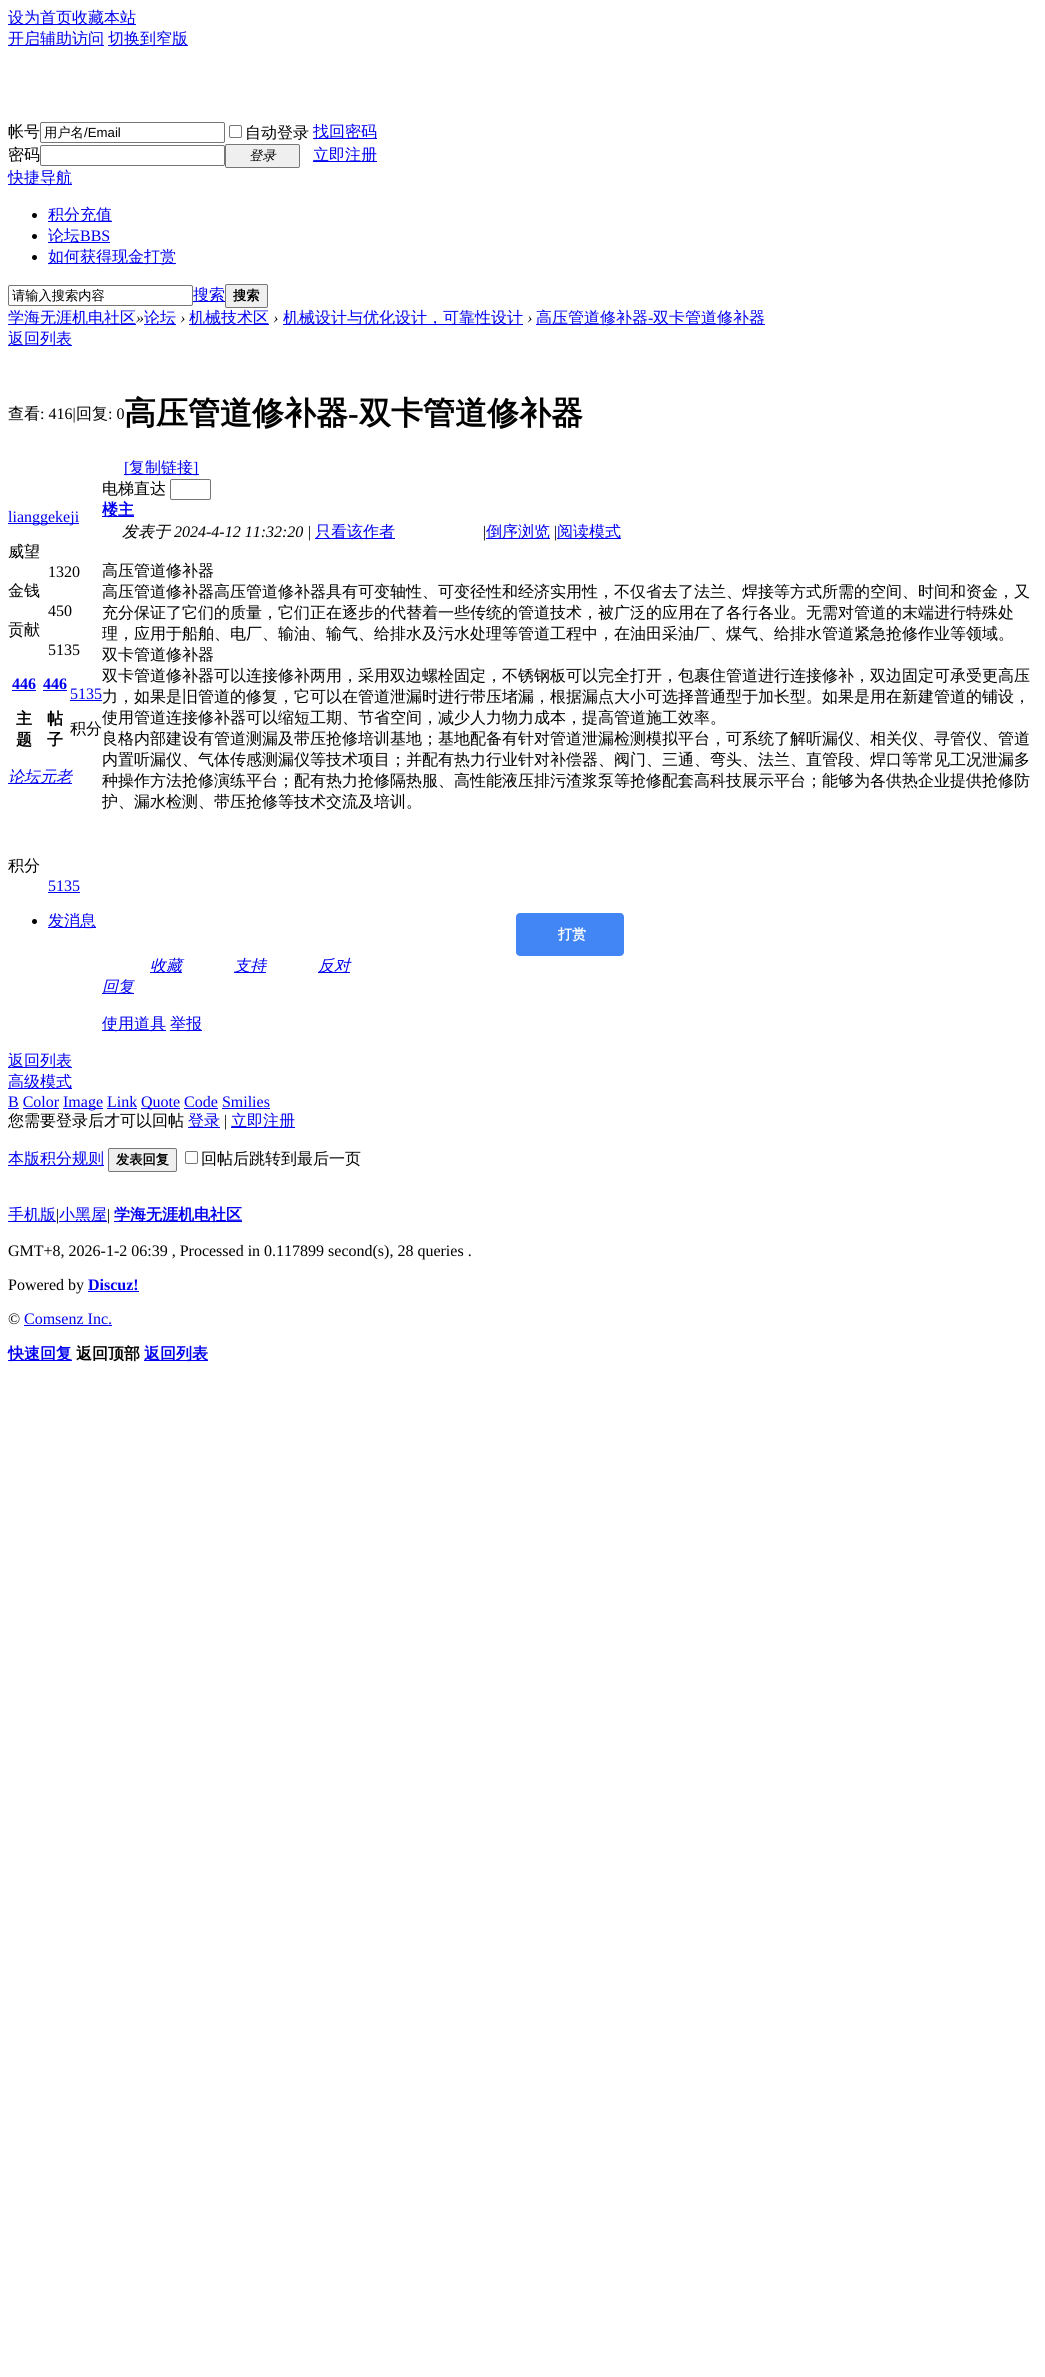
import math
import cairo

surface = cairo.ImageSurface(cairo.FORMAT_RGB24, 1045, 2377)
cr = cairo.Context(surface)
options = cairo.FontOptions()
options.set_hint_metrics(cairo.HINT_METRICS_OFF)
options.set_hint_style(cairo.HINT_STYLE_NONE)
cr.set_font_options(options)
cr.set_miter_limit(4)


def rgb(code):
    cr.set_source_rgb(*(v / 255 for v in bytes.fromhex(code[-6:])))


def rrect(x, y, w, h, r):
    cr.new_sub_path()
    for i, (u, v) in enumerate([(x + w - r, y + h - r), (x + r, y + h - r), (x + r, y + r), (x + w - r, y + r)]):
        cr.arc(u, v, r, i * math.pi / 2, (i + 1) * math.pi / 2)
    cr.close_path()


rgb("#ffffff")
cr.paint()
for x, y, w, h, color in [
    (8, 24, 128, 1, "#0000ee"),
    (8, 45, 96, 1, "#0000ee"),
    (108, 45, 80, 1, "#0000ee"),
]:
    rgb(color)
    cr.rectangle(x, y, w, h)
    cr.fill()
rrect(40.5, 122.5, 184, 20, 1.5)
rgb("#767676")
cr.set_line_width(1)
cr.stroke()
rrect(229.5, 125.5, 12, 12, 1.5)
cr.stroke()
rgb("#0000ee")
cr.rectangle(313, 138, 64, 1)
cr.fill()
rrect(40.5, 145.5, 184, 20, 1.5)
rgb("#767676")
cr.stroke()
rgb("#efefef")
rrect(225.5, 144.5, 74, 23, 1.5)
cr.fill_preserve()
rgb("#767676")
cr.stroke()
rgb("#0000ee")
cr.rectangle(313, 161, 64, 1)
cr.fill()
cr.rectangle(8, 184, 64, 1)
cr.fill()
rgb("#000000")
cr.arc(34.5, 215.5, 2.5, 0, 2 * math.pi)
cr.fill()
rgb("#0000ee")
cr.rectangle(48, 221, 64, 1)
cr.fill()
rgb("#000000")
cr.arc(34.5, 236.5, 2.5, 0, 2 * math.pi)
cr.fill()
rgb("#0000ee")
cr.rectangle(48, 242, 62, 1)
cr.fill()
rgb("#000000")
cr.arc(34.5, 257.5, 2.5, 0, 2 * math.pi)
cr.fill()
rgb("#0000ee")
cr.rectangle(48, 263, 128, 1)
cr.fill()
rrect(8.5, 285.5, 184, 20, 1.5)
rgb("#767676")
cr.stroke()
rgb("#0000ee")
cr.rectangle(193, 301, 32, 1)
cr.fill()
rgb("#efefef")
rrect(225.5, 284.5, 42, 23, 1.5)
cr.fill_preserve()
rgb("#767676")
cr.stroke()
for x, y, w, h, color in [
    (8, 324, 128, 1, "#0000ee"),
    (144, 324, 32, 1, "#0000ee"),
    (189, 324, 80, 1, "#0000ee"),
    (283, 324, 240, 1, "#0000ee"),
    (536, 324, 229, 1, "#0000ee"),
    (8, 345, 64, 1, "#0000ee"),
    (124, 474, 75, 1, "#0000ee"),
    (8, 523, 71, 1, "#0000ee"),
    (12, 690, 24, 1, "#0000ee"),
    (43, 690, 24, 1, "#0000ee"),
    (70, 700, 32, 1, "#0000ee"),
    (8, 783, 64, 1, "#0000ee"),
    (48, 892, 32, 1, "#0000ee"),
]:
    rgb(color)
    cr.rectangle(x, y, w, h)
    cr.fill()
rgb("#000000")
cr.arc(34.5, 921.5, 2.5, 0, 2 * math.pi)
cr.fill()
rgb("#0000ee")
cr.rectangle(48, 927, 48, 1)
cr.fill()
rrect(170.5, 479.5, 40, 20, 1.5)
rgb("#767676")
cr.stroke()
for x, y, w, h, color in [
    (102, 516, 32, 1, "#0000ee"),
    (315, 538, 80, 1, "#0000ee"),
    (486, 538, 64, 1, "#0000ee"),
    (557, 538, 64, 1, "#0000ee"),
]:
    rgb(color)
    cr.rectangle(x, y, w, h)
    cr.fill()
rgb("#4285f4")
rrect(516, 913, 108, 43, 4)
cr.fill()
for x, y, w, h, color in [
    (150, 972, 32, 1, "#0000ee"),
    (234, 972, 32, 1, "#0000ee"),
    (318, 972, 32, 1, "#0000ee"),
    (102, 993, 32, 1, "#0000ee"),
    (102, 1030, 64, 1, "#0000ee"),
    (170, 1030, 32, 1, "#0000ee"),
    (8, 1067, 64, 1, "#0000ee"),
    (8, 1088, 64, 1, "#0000ee"),
    (8, 1108, 11, 1, "#0000ee"),
    (63, 1108, 40, 1, "#0000ee"),
    (141, 1108, 39, 1, "#0000ee"),
    (23, 1108, 36, 1, "#0000ee"),
    (107, 1108, 30, 1, "#0000ee"),
    (184, 1108, 34, 1, "#0000ee"),
    (222, 1108, 48, 1, "#0000ee"),
    (188, 1127, 32, 1, "#0000ee"),
    (231, 1127, 64, 1, "#0000ee"),
    (8, 1165, 96, 1, "#0000ee"),
]:
    rgb(color)
    cr.rectangle(x, y, w, h)
    cr.fill()
rgb("#efefef")
rrect(108.5, 1148.5, 68, 23, 1.5)
cr.fill_preserve()
rgb("#767676")
cr.stroke()
rrect(185.5, 1151.5, 12, 12, 1.5)
cr.stroke()
for x, y, w, h, color in [
    (8, 1221, 48, 1, "#0000ee"),
    (59, 1221, 48, 1, "#0000ee"),
    (114, 1221, 128, 1, "#0000ee"),
    (88, 1291, 51, 1, "#0000ee"),
    (24, 1325, 88, 1, "#0000ee"),
    (8, 1360, 64, 1, "#0000ee"),
    (144, 1360, 64, 1, "#0000ee"),
]:
    rgb(color)
    cr.rectangle(x, y, w, h)
    cr.fill()
cr.select_font_face("WenQuanYi Zen Hei Medium")
cr.set_font_size(16)
for x, y, s in [
    (8, 23, "设为首页收藏本站"),
    (8, 44, "开启辅助访问"),
    (108, 44, "切换到窄版"),
]:
    cr.move_to(x, y)
    cr.show_text(s)
rgb("#000000")
cr.move_to(8, 137)
cr.show_text("帐号")
cr.set_font_size(13.25)
cr.move_to(44, 137)
cr.show_text("用户名")
cr.select_font_face("Liberation Sans")
cr.move_to(84, 137)
cr.show_text("/Email")
cr.select_font_face("WenQuanYi Zen Hei Medium")
cr.set_font_size(16)
cr.move_to(245, 138)
cr.show_text("自动登录")
rgb("#0000ee")
cr.move_to(313, 137)
cr.show_text("找回密码")
rgb("#000000")
cr.move_to(8, 160)
cr.show_text("密码")
cr.select_font_face("WenQuanYi Zen Hei Medium", cairo.FONT_SLANT_ITALIC)
cr.set_font_size(13.25)
cr.move_to(249, 160)
cr.show_text("登录")
cr.select_font_face("WenQuanYi Zen Hei Medium")
cr.set_font_size(16)
rgb("#0000ee")
for x, y, s in [
    (313, 160, "立即注册"),
    (8, 183, "快捷导航"),
    (48, 220, "积分充值"),
    (48, 241, "论坛"),
]:
    cr.move_to(x, y)
    cr.show_text(s)
cr.select_font_face("Liberation Serif")
cr.move_to(80, 241)
cr.show_text("BBS")
cr.select_font_face("WenQuanYi Zen Hei Medium")
cr.move_to(48, 262)
cr.show_text("如何获得现金打赏")
cr.set_font_size(13.25)
rgb("#000000")
cr.move_to(12, 300)
cr.show_text("请输入搜索内容")
cr.set_font_size(16)
rgb("#0000ee")
cr.move_to(193, 300)
cr.show_text("搜索")
cr.select_font_face("WenQuanYi Zen Hei", cairo.FONT_SLANT_NORMAL, cairo.FONT_WEIGHT_BOLD)
cr.set_font_size(13.25)
rgb("#000000")
cr.move_to(233, 300)
cr.show_text("搜索")
cr.select_font_face("WenQuanYi Zen Hei Medium")
cr.set_font_size(16)
rgb("#0000ee")
cr.move_to(8, 323)
cr.show_text("学海无涯机电社区")
cr.select_font_face("Liberation Serif", cairo.FONT_SLANT_ITALIC)
rgb("#000000")
cr.move_to(136, 323)
cr.show_text("»")
cr.select_font_face("WenQuanYi Zen Hei Medium")
rgb("#0000ee")
cr.move_to(144, 323)
cr.show_text("论坛")
cr.select_font_face("Liberation Serif", cairo.FONT_SLANT_ITALIC)
rgb("#000000")
cr.move_to(180, 323)
cr.show_text("›")
cr.select_font_face("WenQuanYi Zen Hei Medium")
rgb("#0000ee")
cr.move_to(189, 323)
cr.show_text("机械技术区")
cr.select_font_face("Liberation Serif", cairo.FONT_SLANT_ITALIC)
rgb("#000000")
cr.move_to(273, 323)
cr.show_text("›")
cr.select_font_face("WenQuanYi Zen Hei Medium")
rgb("#0000ee")
cr.move_to(283, 323)
cr.show_text("机械设计与优化设计，可靠性设计")
cr.select_font_face("Liberation Serif", cairo.FONT_SLANT_ITALIC)
rgb("#000000")
cr.move_to(527, 323)
cr.show_text("›")
cr.select_font_face("WenQuanYi Zen Hei Medium")
rgb("#0000ee")
cr.move_to(536, 323)
cr.show_text("高压管道修补器")
cr.select_font_face("Liberation Serif")
cr.move_to(648, 323)
cr.show_text("-")
cr.select_font_face("WenQuanYi Zen Hei Medium")
cr.move_to(653, 323)
cr.show_text("双卡管道修补器")
cr.move_to(8, 344)
cr.show_text("返回列表")
rgb("#000000")
cr.move_to(8, 419)
cr.show_text("查看")
cr.select_font_face("Liberation Serif")
cr.move_to(40, 419)
cr.show_text(": 416|")
cr.select_font_face("WenQuanYi Zen Hei Medium")
cr.move_to(76, 419)
cr.show_text("回复")
cr.select_font_face("Liberation Serif")
cr.move_to(108, 419)
cr.show_text(": 0")
cr.select_font_face("WenQuanYi Zen Hei", cairo.FONT_SLANT_NORMAL, cairo.FONT_WEIGHT_BOLD)
cr.set_font_size(32)
cr.move_to(124, 424)
cr.show_text("高压管道修补器")
cr.select_font_face("Liberation Serif", cairo.FONT_SLANT_NORMAL, cairo.FONT_WEIGHT_BOLD)
cr.move_to(348, 424)
cr.show_text("-")
cr.select_font_face("WenQuanYi Zen Hei", cairo.FONT_SLANT_NORMAL, cairo.FONT_WEIGHT_BOLD)
cr.move_to(359, 424)
cr.show_text("双卡管道修补器")
cr.select_font_face("Liberation Serif")
cr.set_font_size(16)
rgb("#0000ee")
cr.move_to(124, 473)
cr.show_text("[")
cr.select_font_face("WenQuanYi Zen Hei Medium")
cr.move_to(129, 473)
cr.show_text("复制链接")
cr.select_font_face("Liberation Serif")
cr.move_to(193, 473)
cr.show_text("]")
cr.move_to(8, 522)
cr.show_text("lianggekeji")
cr.select_font_face("WenQuanYi Zen Hei Medium")
rgb("#000000")
cr.move_to(8, 557)
cr.show_text("威望")
cr.select_font_face("Liberation Serif")
cr.move_to(48, 577)
cr.show_text("1320")
cr.select_font_face("WenQuanYi Zen Hei Medium")
cr.move_to(8, 596)
cr.show_text("金钱")
cr.select_font_face("Liberation Serif")
cr.move_to(48, 616)
cr.show_text("450")
cr.select_font_face("WenQuanYi Zen Hei Medium")
cr.move_to(8, 635)
cr.show_text("贡献")
cr.select_font_face("Liberation Serif")
cr.move_to(48, 655)
cr.show_text("5135")
cr.select_font_face("Liberation Serif", cairo.FONT_SLANT_NORMAL, cairo.FONT_WEIGHT_BOLD)
rgb("#0000ee")
cr.move_to(12, 689)
cr.show_text("446")
cr.select_font_face("WenQuanYi Zen Hei", cairo.FONT_SLANT_NORMAL, cairo.FONT_WEIGHT_BOLD)
rgb("#000000")
cr.move_to(16, 724)
cr.show_text("主")
cr.move_to(16, 745)
cr.show_text("题")
cr.select_font_face("Liberation Serif", cairo.FONT_SLANT_NORMAL, cairo.FONT_WEIGHT_BOLD)
rgb("#0000ee")
cr.move_to(43, 689)
cr.show_text("446")
cr.select_font_face("WenQuanYi Zen Hei", cairo.FONT_SLANT_NORMAL, cairo.FONT_WEIGHT_BOLD)
rgb("#000000")
cr.move_to(47, 724)
cr.show_text("帖")
cr.move_to(47, 745)
cr.show_text("子")
cr.select_font_face("Liberation Serif")
rgb("#0000ee")
cr.move_to(70, 699)
cr.show_text("5135")
cr.select_font_face("WenQuanYi Zen Hei Medium")
rgb("#000000")
cr.move_to(70, 734)
cr.show_text("积分")
cr.select_font_face("WenQuanYi Zen Hei Medium", cairo.FONT_SLANT_ITALIC)
rgb("#0000ee")
cr.move_to(8, 782)
cr.show_text("论坛元老")
cr.select_font_face("WenQuanYi Zen Hei Medium")
rgb("#000000")
cr.move_to(8, 871)
cr.show_text("积分")
cr.select_font_face("Liberation Serif")
rgb("#0000ee")
cr.move_to(48, 891)
cr.show_text("5135")
cr.select_font_face("WenQuanYi Zen Hei Medium")
cr.move_to(48, 926)
cr.show_text("发消息")
rgb("#000000")
cr.move_to(102, 494)
cr.show_text("电梯直达")
cr.select_font_face("WenQuanYi Zen Hei", cairo.FONT_SLANT_NORMAL, cairo.FONT_WEIGHT_BOLD)
rgb("#0000ee")
cr.move_to(102, 515)
cr.show_text("楼主")
cr.select_font_face("WenQuanYi Zen Hei Medium", cairo.FONT_SLANT_ITALIC)
rgb("#000000")
cr.move_to(122, 537)
cr.show_text("发表于")
cr.select_font_face("Liberation Serif", cairo.FONT_SLANT_ITALIC)
cr.move_to(174, 537)
cr.show_text("2024-4-12 11:32:20")
cr.select_font_face("Liberation Serif")
cr.move_to(308, 537)
cr.show_text("|")
cr.select_font_face("WenQuanYi Zen Hei Medium")
rgb("#0000ee")
cr.move_to(315, 537)
cr.show_text("只看该作者")
cr.select_font_face("Liberation Serif")
rgb("#000000")
cr.move_to(483, 537)
cr.show_text("|")
cr.select_font_face("WenQuanYi Zen Hei Medium")
rgb("#0000ee")
cr.move_to(486, 537)
cr.show_text("倒序浏览")
cr.select_font_face("Liberation Serif")
rgb("#000000")
cr.move_to(554, 537)
cr.show_text("|")
cr.select_font_face("WenQuanYi Zen Hei Medium")
rgb("#0000ee")
cr.move_to(557, 537)
cr.show_text("阅读模式")
rgb("#000000")
for x, y, s in [
    (102, 576, "高压管道修补器"),
    (102, 597, "高压管道修补器高压管道修补器具有可变轴性、可变径性和经济实用性，不仅省去了法兰、焊接等方式所需的空间、时间和资金，又"),
    (102, 618, "充分保证了它们的质量，它们正在逐步的代替着一些传统的管道技术，被广泛的应用在了各行各业。无需对管道的末端进行特殊处"),
    (102, 639, "理，应用于船舶、电厂、输油、输气、给排水及污水处理等管道工程中，在油田采油厂、煤气、给排水管道紧急抢修作业等领域。"),
    (102, 660, "双卡管道修补器"),
    (102, 681, "双卡管道修补器可以连接修补两用，采用双边螺栓固定，不锈钢板可以完全打开，包裹住管道进行连接修补，双边固定可承受更高压"),
    (102, 702, "力，如果是旧管道的修复，它可以在管道泄漏时进行带压堵漏，根据漏点大小可选择普通型于加长型。如果是用在新建管道的铺设，"),
    (102, 723, "使用管道连接修补器可以缩短工期、节省空间，减少人力物力成本，提高管道施工效率。"),
    (102, 744, "良格内部建设有管道测漏及带压抢修培训基地；基地配备有针对管道泄漏检测模拟平台，可系统了解听漏仪、相关仪、寻管仪、管道"),
    (102, 765, "内置听漏仪、气体传感测漏仪等技术项目；并配有热力行业针对补偿器、阀门、三通、弯头、法兰、直管段、焊口等常见工况泄漏多"),
    (102, 786, "种操作方法抢修演练平台；配有热力抢修隔热服、高性能液压排污渣浆泵等抢修配套高科技展示平台；能够为各供热企业提供抢修防"),
    (102, 807, "护、漏水检测、带压抢修等技术交流及培训。"),
]:
    cr.move_to(x, y)
    cr.show_text(s)
cr.select_font_face("WenQuanYi Zen Hei", cairo.FONT_SLANT_NORMAL, cairo.FONT_WEIGHT_BOLD)
cr.set_font_size(14)
rgb("#ffffff")
cr.move_to(558, 939)
cr.show_text("打赏")
cr.select_font_face("WenQuanYi Zen Hei Medium", cairo.FONT_SLANT_ITALIC)
cr.set_font_size(16)
rgb("#0000ee")
for x, y, s in [
    (150, 971, "收藏"),
    (234, 971, "支持"),
    (318, 971, "反对"),
    (102, 992, "回复"),
]:
    cr.move_to(x, y)
    cr.show_text(s)
cr.select_font_face("WenQuanYi Zen Hei Medium")
for x, y, s in [
    (102, 1029, "使用道具"),
    (170, 1029, "举报"),
    (8, 1066, "返回列表"),
    (8, 1087, "高级模式"),
]:
    cr.move_to(x, y)
    cr.show_text(s)
cr.select_font_face("Liberation Serif")
for x, y, s in [
    (8, 1107, "B Color"),
    (63, 1107, "Image Link"),
    (141, 1107, "Quote Code Smilies"),
]:
    cr.move_to(x, y)
    cr.show_text(s)
cr.select_font_face("WenQuanYi Zen Hei Medium")
rgb("#000000")
cr.move_to(8, 1126)
cr.show_text("您需要登录后才可以回帖")
rgb("#0000ee")
cr.move_to(188, 1126)
cr.show_text("登录")
cr.select_font_face("Liberation Serif")
rgb("#000000")
cr.move_to(224, 1126)
cr.show_text("|")
cr.select_font_face("WenQuanYi Zen Hei Medium")
rgb("#0000ee")
cr.move_to(231, 1126)
cr.show_text("立即注册")
cr.move_to(8, 1164)
cr.show_text("本版积分规则")
cr.select_font_face("WenQuanYi Zen Hei", cairo.FONT_SLANT_NORMAL, cairo.FONT_WEIGHT_BOLD)
cr.set_font_size(13.25)
rgb("#000000")
cr.move_to(116, 1164)
cr.show_text("发表回复")
cr.select_font_face("WenQuanYi Zen Hei Medium")
cr.set_font_size(16)
cr.move_to(201, 1164)
cr.show_text("回帖后跳转到最后一页")
rgb("#0000ee")
cr.move_to(8, 1220)
cr.show_text("手机版")
cr.select_font_face("Liberation Serif")
rgb("#000000")
cr.move_to(56, 1220)
cr.show_text("|")
cr.select_font_face("WenQuanYi Zen Hei Medium")
rgb("#0000ee")
cr.move_to(59, 1220)
cr.show_text("小黑屋")
cr.select_font_face("Liberation Serif")
rgb("#000000")
cr.move_to(107, 1220)
cr.show_text("|")
cr.select_font_face("WenQuanYi Zen Hei", cairo.FONT_SLANT_NORMAL, cairo.FONT_WEIGHT_BOLD)
rgb("#0000ee")
cr.move_to(114, 1220)
cr.show_text("学海无涯机电社区")
cr.select_font_face("Liberation Serif")
rgb("#000000")
cr.move_to(8, 1256)
cr.show_text("GMT+8, 2026-1-2 06:39 , Processed in 0.117899 second(s), 28 queries .")
cr.move_to(8, 1290)
cr.show_text("Powered by")
cr.select_font_face("Liberation Serif", cairo.FONT_SLANT_NORMAL, cairo.FONT_WEIGHT_BOLD)
rgb("#0000ee")
cr.move_to(88, 1290)
cr.show_text("Discuz!")
cr.select_font_face("Liberation Serif")
rgb("#000000")
cr.move_to(8, 1324)
cr.show_text("©")
rgb("#0000ee")
cr.move_to(24, 1324)
cr.show_text("Comsenz Inc.")
cr.select_font_face("WenQuanYi Zen Hei", cairo.FONT_SLANT_NORMAL, cairo.FONT_WEIGHT_BOLD)
cr.move_to(8, 1359)
cr.show_text("快速回复")
rgb("#000000")
cr.move_to(76, 1359)
cr.show_text("返回顶部")
rgb("#0000ee")
cr.move_to(144, 1359)
cr.show_text("返回列表")
surface.write_to_png("page.png")
